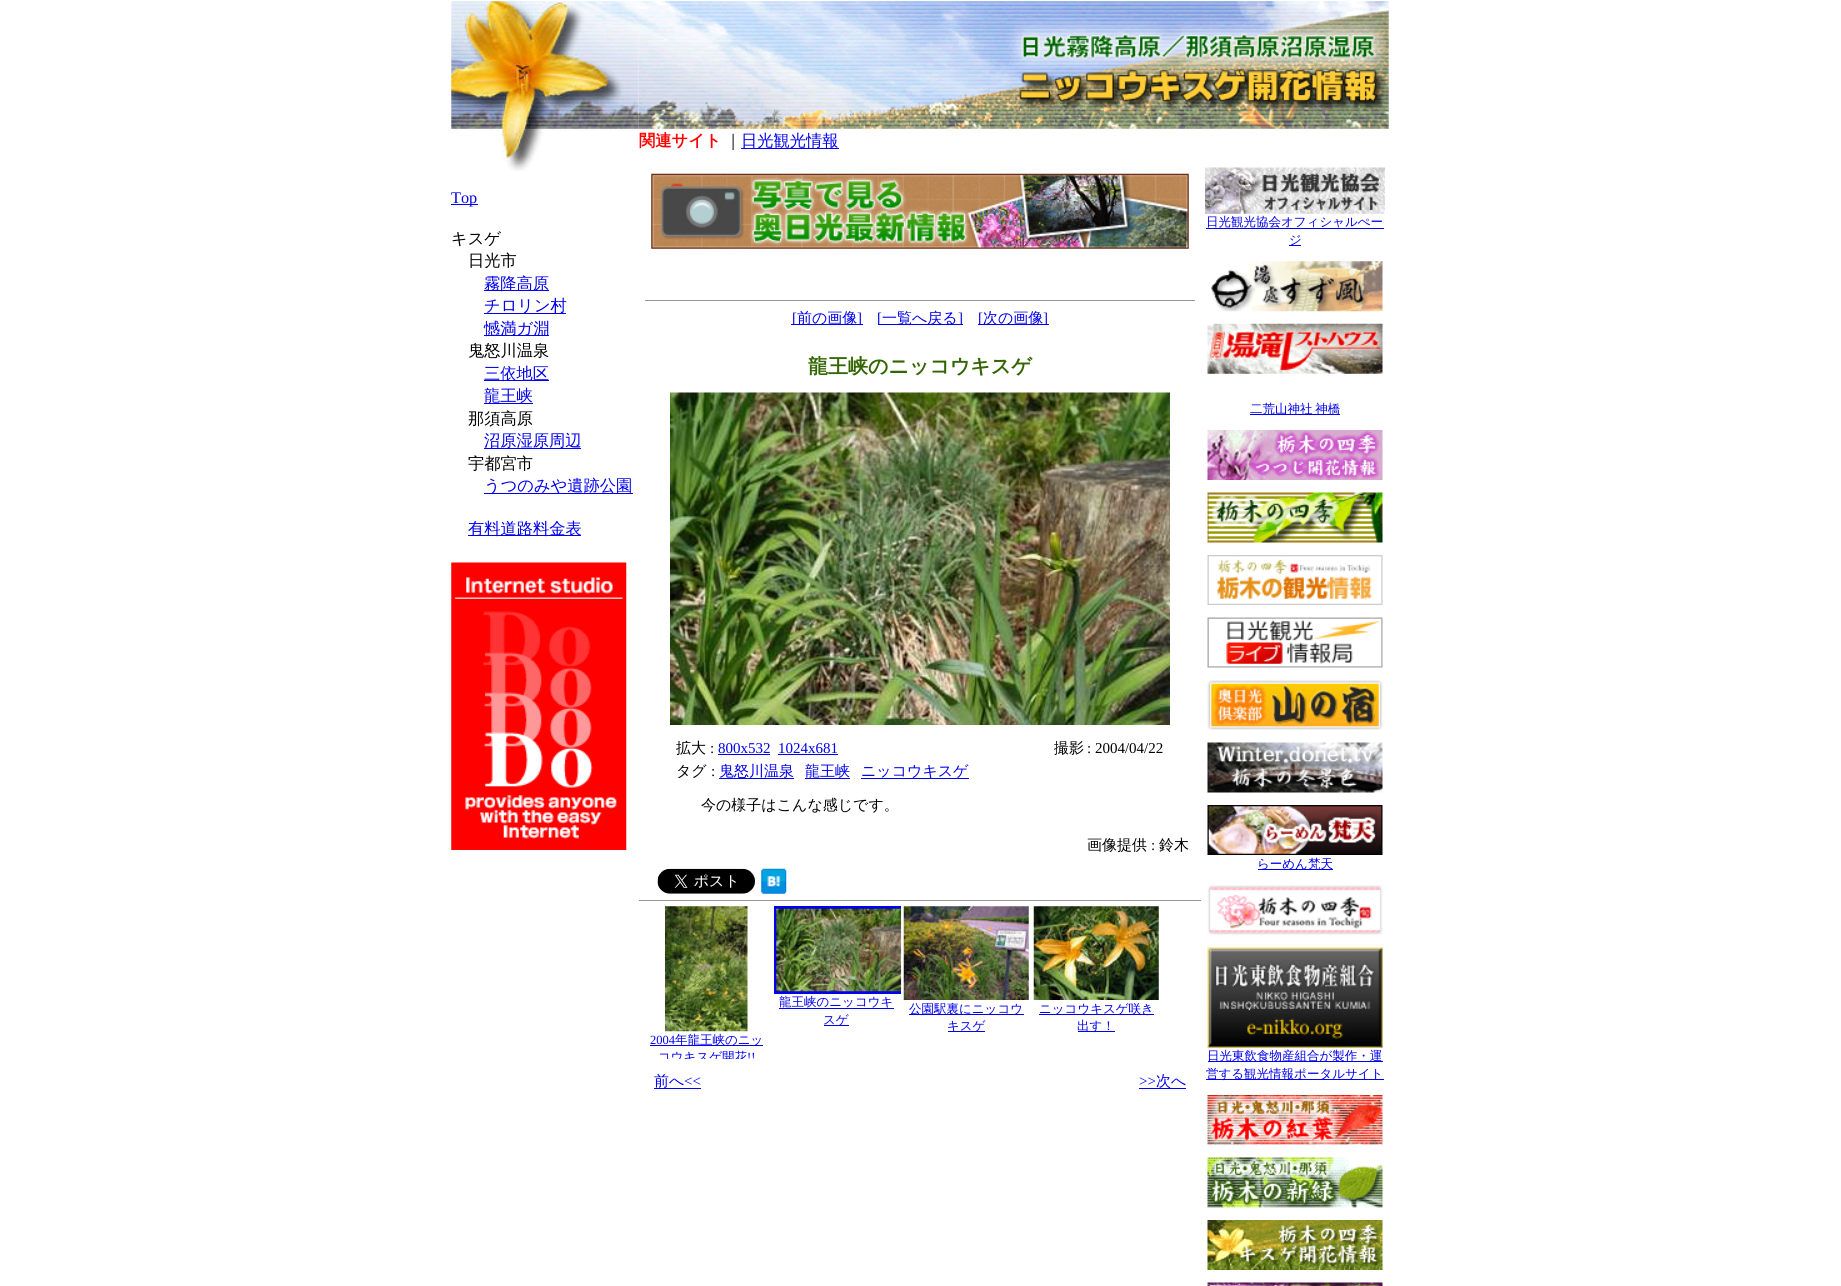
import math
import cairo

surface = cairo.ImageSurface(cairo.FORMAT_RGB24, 1841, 1286)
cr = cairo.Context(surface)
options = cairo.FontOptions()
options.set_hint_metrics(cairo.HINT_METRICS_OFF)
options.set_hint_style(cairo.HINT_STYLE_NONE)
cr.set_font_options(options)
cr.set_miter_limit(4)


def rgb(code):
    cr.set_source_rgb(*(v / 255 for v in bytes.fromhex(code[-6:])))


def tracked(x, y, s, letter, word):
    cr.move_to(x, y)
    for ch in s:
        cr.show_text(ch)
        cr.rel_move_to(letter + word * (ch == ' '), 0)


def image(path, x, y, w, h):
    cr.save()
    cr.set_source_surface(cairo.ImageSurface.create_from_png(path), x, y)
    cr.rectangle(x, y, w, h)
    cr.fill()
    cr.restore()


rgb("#ffffff")
cr.paint()
image("img/1.png", 451, 1, 188, 170)
image("img/2.png", 638, 1, 751, 128)
for x, y, w, h, color in [
    (741, 148, 98, 1, "#0000ee"),
    (451, 204, 27, 1, "#0000ee"),
    (484, 290, 65, 1, "#0000ee"),
    (484, 313, 82, 1, "#0000ee"),
    (484, 335, 65, 1, "#0000ee"),
    (484, 380, 65, 1, "#0000ee"),
    (484, 403, 49, 1, "#0000ee"),
    (484, 448, 97, 1, "#0000ee"),
    (484, 493, 149, 1, "#0000ee"),
    (468, 535, 113, 1, "#0000ee"),
]:
    rgb(color)
    cr.rectangle(x, y, w, h)
    cr.fill()
image("img/3.png", 451, 562, 176, 288)
image("img/4.png", 651, 173, 538, 76)
for x, y, w, h, color in [
    (645, 300, 550, 1, "#999999"),
    (791, 324, 72, 1, "#0000ee"),
    (878, 324, 85, 1, "#0000ee"),
    (978, 324, 71, 1, "#0000ee"),
]:
    rgb(color)
    cr.rectangle(x, y, w, h)
    cr.fill()
image("img/5.png", 670, 392, 500, 333)
for x, y, w, h, color in [
    (718, 754, 52, 1, "#0000ee"),
    (778, 754, 60, 1, "#0000ee"),
    (719, 778, 75, 1, "#0000ee"),
    (805, 778, 45, 1, "#0000ee"),
    (861, 778, 108, 1, "#0000ee"),
]:
    rgb(color)
    cr.rectangle(x, y, w, h)
    cr.fill()
image("img/6.png", 657, 868, 98, 26)
image("img/7.png", 761, 868, 26, 26)
rgb("#999999")
cr.rectangle(639, 900, 562, 1)
cr.fill()
cr.save()
cr.rectangle(771, 904, 130, 155)
cr.clip()
cr.rectangle(775.5, 907.5, 127, 85)
rgb("#0000ee")
cr.set_line_width(3)
cr.stroke()
cr.restore()
image("img/8.png", 776, 908, 126, 84)
rgb("#0000ee")
cr.rectangle(779, 1008, 115, 1)
cr.fill()
cr.rectangle(824, 1025, 25, 1)
cr.fill()
image("img/9.png", 903, 906, 126, 94)
cr.rectangle(909, 1014, 115, 1)
cr.fill()
cr.rectangle(948, 1031, 37, 1)
cr.fill()
image("img/10.png", 1033, 906, 126, 94)
cr.rectangle(1039, 1014, 115, 1)
cr.fill()
cr.rectangle(1078, 1031, 37, 1)
cr.fill()
image("img/11.png", 665, 906, 83, 126)
for x, y, w, h, color in [
    (650, 1045, 113, 1, "#0000ee"),
    (654, 1088, 47, 1, "#0000ee"),
    (1139, 1088, 47, 1, "#0000ee"),
]:
    rgb(color)
    cr.rectangle(x, y, w, h)
    cr.fill()
image("img/12.png", 1205, 167, 180, 47)
cr.rectangle(1206, 228, 178, 1)
cr.fill()
cr.rectangle(1289, 245, 12, 1)
cr.fill()
image("img/13.png", 1211, 261, 172, 51)
image("img/14.png", 1207, 323, 176, 51)
cr.rectangle(1250, 414, 90, 1)
cr.fill()
image("img/15.png", 1207, 430, 176, 50)
image("img/16.png", 1207, 492, 176, 51)
image("img/17.png", 1207, 555, 176, 50)
image("img/18.png", 1207, 617, 176, 51)
image("img/19.png", 1207, 680, 176, 50)
image("img/20.png", 1207, 742, 176, 51)
image("img/21.png", 1207, 805, 176, 50)
cr.rectangle(1258, 869, 75, 1)
cr.fill()
image("img/22.png", 1207, 885, 176, 50)
image("img/23.png", 1207, 947, 176, 101)
cr.rectangle(1208, 1061, 175, 1)
cr.fill()
cr.rectangle(1206, 1079, 178, 1)
cr.fill()
image("img/24.png", 1207, 1095, 176, 50)
image("img/25.png", 1207, 1157, 176, 51)
image("img/26.png", 1207, 1220, 176, 50)
image("img/27.png", 1207, 1282, 176, 4)
cr.select_font_face("WenQuanYi Zen Hei", cairo.FONT_SLANT_NORMAL, cairo.FONT_WEIGHT_BOLD)
cr.set_font_size(16.25)
rgb("#ff0000")
cr.move_to(639, 146)
cr.show_text("関連サイト")
cr.select_font_face("WenQuanYi Zen Hei Medium")
rgb("#000000")
cr.move_to(725, 146)
cr.show_text("｜")
rgb("#0000ee")
cr.move_to(741, 146)
cr.show_text("日光観光情報")
cr.select_font_face("Liberation Serif")
cr.move_to(451, 203)
cr.show_text("Top")
cr.select_font_face("WenQuanYi Zen Hei Medium")
rgb("#000000")
cr.move_to(451, 244)
cr.show_text("キスゲ")
cr.move_to(468, 266)
cr.show_text("日光市")
rgb("#0000ee")
for x, y, s in [
    (484, 289, "霧降高原"),
    (484, 311, "チロリン村"),
    (484, 334, "憾満ガ淵"),
]:
    cr.move_to(x, y)
    cr.show_text(s)
rgb("#000000")
cr.move_to(468, 356)
cr.show_text("鬼怒川温泉")
rgb("#0000ee")
cr.move_to(484, 379)
cr.show_text("三依地区")
cr.move_to(484, 401)
cr.show_text("龍王峡")
rgb("#000000")
cr.move_to(468, 424)
cr.show_text("那須高原")
rgb("#0000ee")
cr.move_to(484, 446)
cr.show_text("沼原湿原周辺")
rgb("#000000")
cr.move_to(468, 469)
cr.show_text("宇都宮市")
rgb("#0000ee")
cr.move_to(484, 491)
cr.show_text("うつのみや遺跡公園")
cr.move_to(468, 534)
cr.show_text("有料道路料金表")
cr.select_font_face("Liberation Serif")
cr.set_font_size(15)
cr.move_to(792, 323)
cr.show_text("[")
cr.select_font_face("WenQuanYi Zen Hei Medium")
cr.move_to(797, 323)
cr.show_text("前の画像")
cr.select_font_face("Liberation Serif")
cr.move_to(857, 323)
cr.show_text("]")
cr.move_to(877, 323)
cr.show_text("[")
cr.select_font_face("WenQuanYi Zen Hei Medium")
cr.move_to(882, 323)
cr.show_text("一覧へ戻る")
cr.select_font_face("Liberation Serif")
cr.move_to(958, 323)
cr.show_text("]")
cr.move_to(978, 323)
cr.show_text("[")
cr.select_font_face("WenQuanYi Zen Hei Medium")
cr.move_to(983, 323)
cr.show_text("次の画像")
cr.select_font_face("Liberation Serif")
cr.move_to(1043, 323)
cr.show_text("]")
cr.select_font_face("WenQuanYi Zen Hei", cairo.FONT_SLANT_NORMAL, cairo.FONT_WEIGHT_BOLD)
cr.set_font_size(20)
rgb("#336600")
cr.move_to(808, 373)
cr.show_text("龍王峡のニッコウキスゲ")
cr.select_font_face("WenQuanYi Zen Hei Medium")
cr.set_font_size(15)
rgb("#000000")
cr.move_to(676, 753)
cr.show_text("拡大")
cr.select_font_face("Liberation Serif")
cr.move_to(710, 753)
cr.show_text(":")
rgb("#0000ee")
cr.move_to(718, 753)
cr.show_text("800x532")
cr.move_to(778, 753)
cr.show_text("1024x681")
cr.select_font_face("WenQuanYi Zen Hei Medium")
rgb("#000000")
cr.move_to(1054, 753)
cr.show_text("撮影")
cr.select_font_face("Liberation Serif")
cr.move_to(1087, 753)
cr.show_text(": 2004/04/22")
cr.select_font_face("WenQuanYi Zen Hei Medium")
cr.move_to(676, 776)
cr.show_text("タグ")
cr.select_font_face("Liberation Serif")
cr.move_to(711, 776)
cr.show_text(":")
cr.select_font_face("WenQuanYi Zen Hei Medium")
rgb("#0000ee")
for x, y, s in [
    (719, 776, "鬼怒川温泉"),
    (805, 776, "龍王峡"),
    (861, 776, "ニッコウキスゲ"),
]:
    cr.move_to(x, y)
    cr.show_text(s)
rgb("#000000")
cr.move_to(701, 810)
cr.show_text("今の様子はこんな感じです。")
cr.move_to(1087, 850)
cr.show_text("画像提供")
cr.select_font_face("Liberation Serif")
cr.move_to(1151, 850)
cr.show_text(":")
cr.select_font_face("WenQuanYi Zen Hei Medium")
cr.move_to(1159, 850)
cr.show_text("鈴木")
cr.set_font_size(12.5)
rgb("#0000ee")
for x, y, s in [
    (779, 1006, "龍王峡のニッコウキ"),
    (823, 1024, "スゲ"),
    (909, 1013, "公園駅裏にニッコウ"),
    (947, 1030, "キスゲ"),
    (1039, 1013, "ニッコウキスゲ咲き"),
    (1077, 1030, "出す！"),
]:
    cr.move_to(x, y)
    cr.show_text(s)
cr.select_font_face("Liberation Serif")
cr.move_to(650, 1044)
cr.show_text("2004")
cr.select_font_face("WenQuanYi Zen Hei Medium")
cr.move_to(675, 1044)
cr.show_text("年龍王峡のニッ")
cr.save()
cr.rectangle(641, 904, 130, 155)
cr.clip()
cr.move_to(658, 1061)
cr.show_text("コウキスゲ開花")
cr.select_font_face("Liberation Serif")
cr.move_to(747, 1061)
cr.show_text("!!")
cr.restore()
cr.set_font_size(15)
cr.move_to(654, 1086)
cr.show_text("前へ")
cr.select_font_face("Liberation Serif")
cr.move_to(684, 1086)
cr.show_text("<<")
cr.move_to(1139, 1086)
cr.show_text(">>")
cr.select_font_face("WenQuanYi Zen Hei Medium")
cr.move_to(1156, 1086)
cr.show_text("次へ")
cr.set_font_size(12.5)
cr.move_to(1206, 226)
cr.show_text("日光観光協会オフィシャルぺー")
cr.move_to(1289, 244)
cr.show_text("ジ")
tracked(1250, 413, "二荒山神社 神橋", 0, -1)
for x, y, s in [
    (1257, 868, "らーめん梵天"),
    (1207, 1060, "日光東飲食物産組合が製作・運"),
    (1206, 1078, "営する観光情報ポータルサイト"),
]:
    cr.move_to(x, y)
    cr.show_text(s)
surface.write_to_png("page.png")
